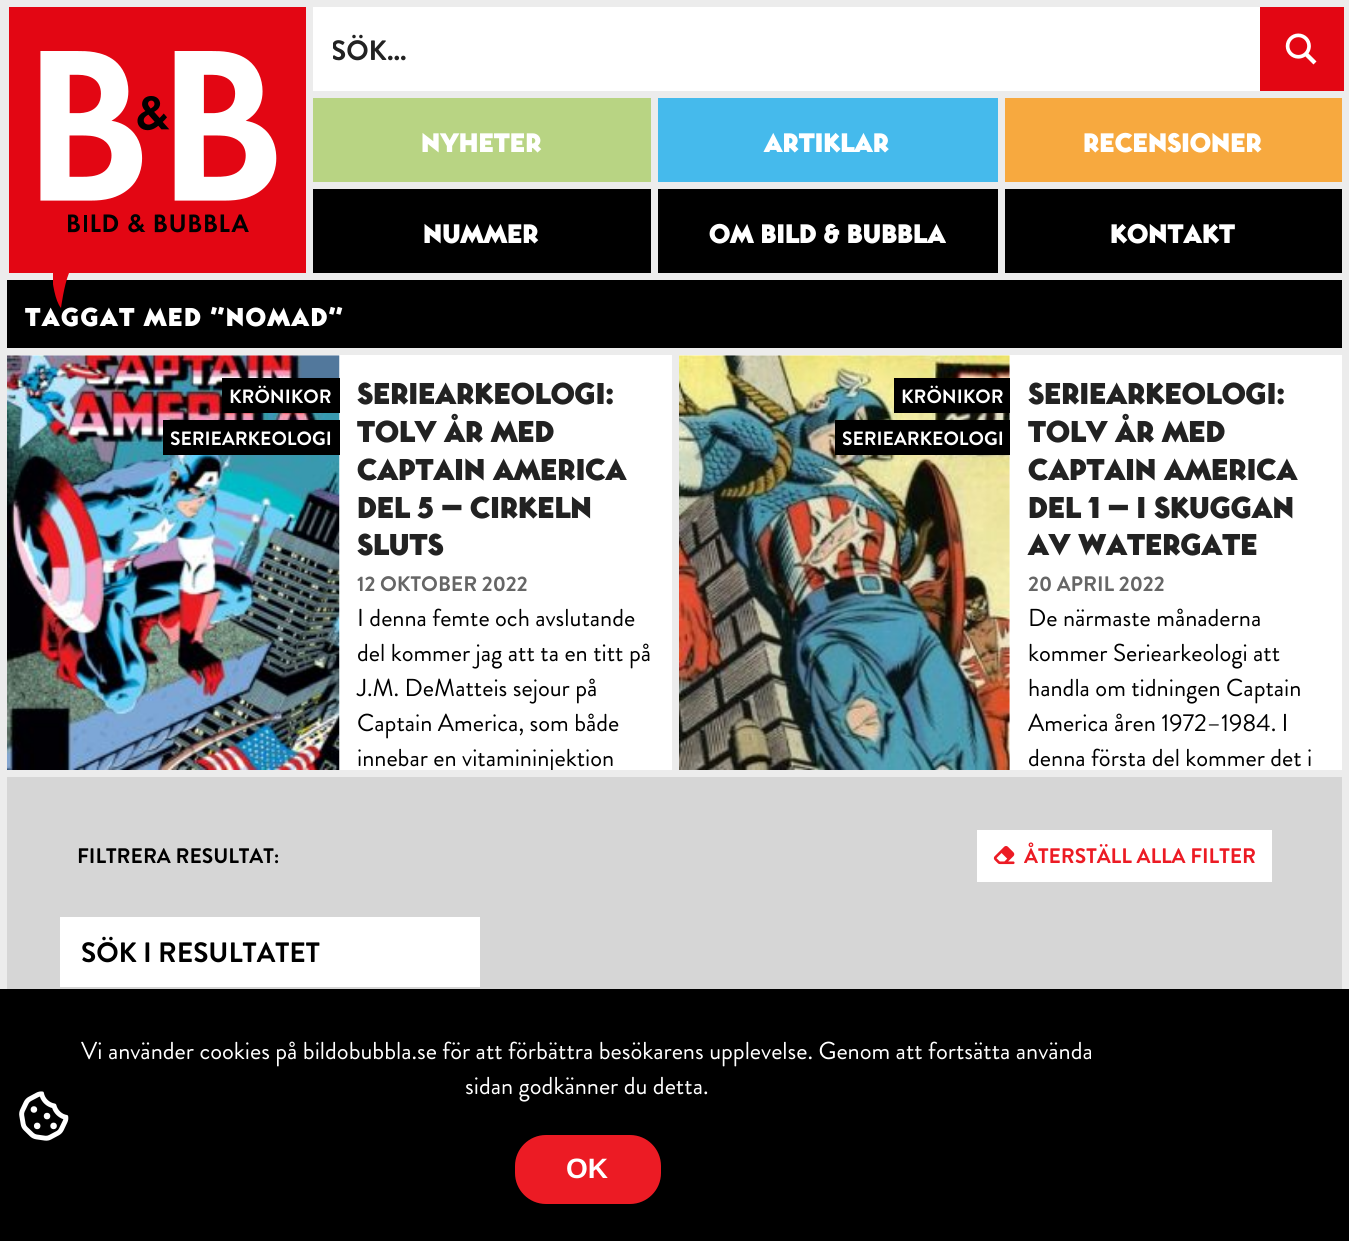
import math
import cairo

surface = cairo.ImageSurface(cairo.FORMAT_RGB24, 1349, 1241)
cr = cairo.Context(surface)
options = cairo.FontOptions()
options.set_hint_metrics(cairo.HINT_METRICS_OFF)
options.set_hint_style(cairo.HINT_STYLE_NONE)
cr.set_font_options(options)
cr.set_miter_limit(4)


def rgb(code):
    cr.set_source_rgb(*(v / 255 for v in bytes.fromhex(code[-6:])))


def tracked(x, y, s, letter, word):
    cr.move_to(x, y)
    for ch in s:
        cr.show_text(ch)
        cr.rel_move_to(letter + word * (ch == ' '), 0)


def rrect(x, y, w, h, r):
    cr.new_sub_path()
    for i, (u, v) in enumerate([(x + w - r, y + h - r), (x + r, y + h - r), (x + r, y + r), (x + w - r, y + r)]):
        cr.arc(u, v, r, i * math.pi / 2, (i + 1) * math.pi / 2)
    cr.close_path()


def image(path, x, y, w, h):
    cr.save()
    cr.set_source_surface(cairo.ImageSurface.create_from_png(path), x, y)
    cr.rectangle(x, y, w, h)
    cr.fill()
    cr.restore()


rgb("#ececec")
cr.paint()
rgb("#e30613")
cr.rectangle(9, 7, 297, 266)
cr.fill()
image("img/1.png", 40, 51, 237, 182)
rgb("#ffffff")
cr.rectangle(313, 7, 947, 84)
cr.fill()
rgb("#e30613")
cr.rectangle(1260, 7, 84, 84)
cr.fill()
image("img/2.png", 1285, 33, 32, 32)
for x, y, w, h, color in [
    (313, 98, 338, 84, "#b8d483"),
    (658, 98, 340, 84, "#45baec"),
    (1005, 98, 337, 84, "#f7a93f"),
    (313, 189, 338, 84, "#000000"),
    (658, 189, 340, 84, "#000000"),
    (1005, 189, 337, 84, "#000000"),
    (7, 280, 1335, 68, "#000000"),
    (7, 355, 665, 415, "#ffffff"),
]:
    rgb(color)
    cr.rectangle(x, y, w, h)
    cr.fill()
image("img/3.png", 7, 355, 333, 415)
for x, y, w, h, color in [
    (222, 378, 118, 35, "#000000"),
    (163, 420, 177, 35, "#000000"),
    (679, 355, 663, 415, "#ffffff"),
]:
    rgb(color)
    cr.rectangle(x, y, w, h)
    cr.fill()
image("img/4.png", 679, 355, 331, 415)
for x, y, w, h, color in [
    (894, 378, 116, 35, "#000000"),
    (835, 420, 175, 35, "#000000"),
    (7, 777, 1335, 212, "#d6d6d6"),
    (977, 830, 295, 52, "#ffffff"),
]:
    rgb(color)
    cr.rectangle(x, y, w, h)
    cr.fill()
image("img/5.png", 993, 846, 22, 19)
cr.rectangle(60, 917, 420, 70)
cr.fill()
rgb("#000000")
cr.rectangle(0, 989, 1349, 252)
cr.fill()
image("img/6.png", 19, 1091, 50, 50)
rgb("#ec1b24")
rrect(513, 1133, 150, 73, 33)
cr.fill_preserve()
rgb("#000000")
cr.set_line_width(4)
cr.stroke()
cr.save()
cr.rectangle(333, 32, 911, 40)
cr.clip()
cr.select_font_face("Brandon Grotesque", cairo.FONT_SLANT_NORMAL, cairo.FONT_WEIGHT_BOLD)
cr.set_font_size(28)
rgb("#222222")
cr.move_to(331, 60)
cr.show_text("SÖK...")
cr.restore()
cr.select_font_face("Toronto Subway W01 Black")
cr.set_font_size(28)
rgb("#ffffff")
for x, y, s in [
    (421, 152, "NYHETER"),
    (764, 152, "ARTIKLAR"),
    (1083, 152, "RECENSIONER"),
    (423, 243, "NUMMER"),
    (709, 243, "OM BILD & BUBBLA"),
    (1110, 243, "KONTAKT"),
]:
    cr.move_to(x, y)
    cr.show_text(s)
cr.set_font_size(27)
tracked(25, 326, "TAGGAT MED \"NOMAD\"", 1.4, 0)
cr.save()
cr.rectangle(53, 273, 52, 53)
cr.clip()
rgb("#e30613")
cr.new_path()
cr.move_to(51.5, 273)
cr.curve_to(52.5, 282.5, 55, 301, 61, 308)
cr.curve_to(61, 308, 64, 285, 69, 273)
cr.close_path()
cr.fill()
cr.restore()
cr.select_font_face("Brandon Grotesque", cairo.FONT_SLANT_NORMAL, cairo.FONT_WEIGHT_BOLD)
cr.set_font_size(19.25)
cr.move_to(229, 403)
cr.show_text("KRÖNIKOR")
cr.move_to(170, 445)
cr.show_text("SERIEARKEOLOGI")
cr.select_font_face("Toronto Subway W01 Black")
cr.set_font_size(31.5)
rgb("#222222")
for x, y, s in [
    (357, 404, "SERIEARKEOLOGI:"),
    (357, 442, "TOLV ÅR MED"),
    (357, 480, "CAPTAIN AMERICA"),
    (357, 518, "DEL 5 – CIRKELN"),
    (357, 555, "SLUTS"),
]:
    cr.move_to(x, y)
    cr.show_text(s)
cr.select_font_face("Brandon Grotesque", cairo.FONT_SLANT_NORMAL, cairo.FONT_WEIGHT_BOLD)
cr.set_font_size(21)
rgb("#666666")
cr.move_to(357, 591)
cr.show_text("12 OKTOBER 2022")
cr.select_font_face("Brandon Grotesque")
cr.set_font_size(24.5)
rgb("#000000")
for x, y, s in [
    (357, 626, "I denna femte och avslutande"),
    (357, 661, "del kommer jag att ta en titt på"),
    (357, 696, "J.M. DeMatteis sejour på"),
    (357, 731, "Captain America, som både"),
]:
    cr.move_to(x, y)
    cr.show_text(s)
cr.save()
cr.rectangle(340, 355, 332, 415)
cr.clip()
cr.move_to(357, 766)
cr.show_text("innebar en vitamininjektion")
cr.restore()
cr.select_font_face("Brandon Grotesque", cairo.FONT_SLANT_NORMAL, cairo.FONT_WEIGHT_BOLD)
cr.set_font_size(19.25)
rgb("#ffffff")
cr.move_to(901, 403)
cr.show_text("KRÖNIKOR")
cr.move_to(842, 445)
cr.show_text("SERIEARKEOLOGI")
cr.select_font_face("Toronto Subway W01 Black")
cr.set_font_size(31.5)
rgb("#222222")
for x, y, s in [
    (1028, 404, "SERIEARKEOLOGI:"),
    (1028, 442, "TOLV ÅR MED"),
    (1028, 480, "CAPTAIN AMERICA"),
    (1028, 518, "DEL 1 – I SKUGGAN"),
    (1028, 555, "AV WATERGATE"),
]:
    cr.move_to(x, y)
    cr.show_text(s)
cr.select_font_face("Brandon Grotesque", cairo.FONT_SLANT_NORMAL, cairo.FONT_WEIGHT_BOLD)
cr.set_font_size(21)
rgb("#666666")
cr.move_to(1028, 591)
cr.show_text("20 APRIL 2022")
cr.select_font_face("Brandon Grotesque")
cr.set_font_size(24.5)
rgb("#000000")
for x, y, s in [
    (1028, 626, "De närmaste månaderna"),
    (1028, 661, "kommer Seriearkeologi att"),
    (1028, 696, "handla om tidningen Captain"),
    (1028, 731, "America åren 1972–1984. I"),
    (1028, 766, "denna första del kommer det i"),
]:
    cr.move_to(x, y)
    cr.show_text(s)
cr.select_font_face("Brandon Grotesque", cairo.FONT_SLANT_NORMAL, cairo.FONT_WEIGHT_BOLD)
cr.set_font_size(21)
cr.move_to(77, 863)
cr.show_text("FILTRERA RESULTAT:")
rgb("#ec1b24")
cr.move_to(1024, 863)
cr.show_text("ÅTERSTÄLL ALLA FILTER")
cr.set_font_size(28)
rgb("#000000")
cr.move_to(81, 962)
cr.show_text("SÖK I RESULTATET")
cr.select_font_face("Brandon Grotesque")
cr.set_font_size(24.5)
rgb("#ffffff")
cr.move_to(81, 1059)
cr.show_text("Vi använder cookies på bildobubbla.se för att förbättra besökarens upplevelse. Genom att fortsätta använda")
cr.move_to(465, 1094)
cr.show_text("sidan godkänner du detta.")
cr.select_font_face("Liberation Sans", cairo.FONT_SLANT_NORMAL, cairo.FONT_WEIGHT_BOLD)
cr.set_font_size(28)
cr.move_to(566, 1178)
cr.show_text("OK")
surface.write_to_png("page.png")
